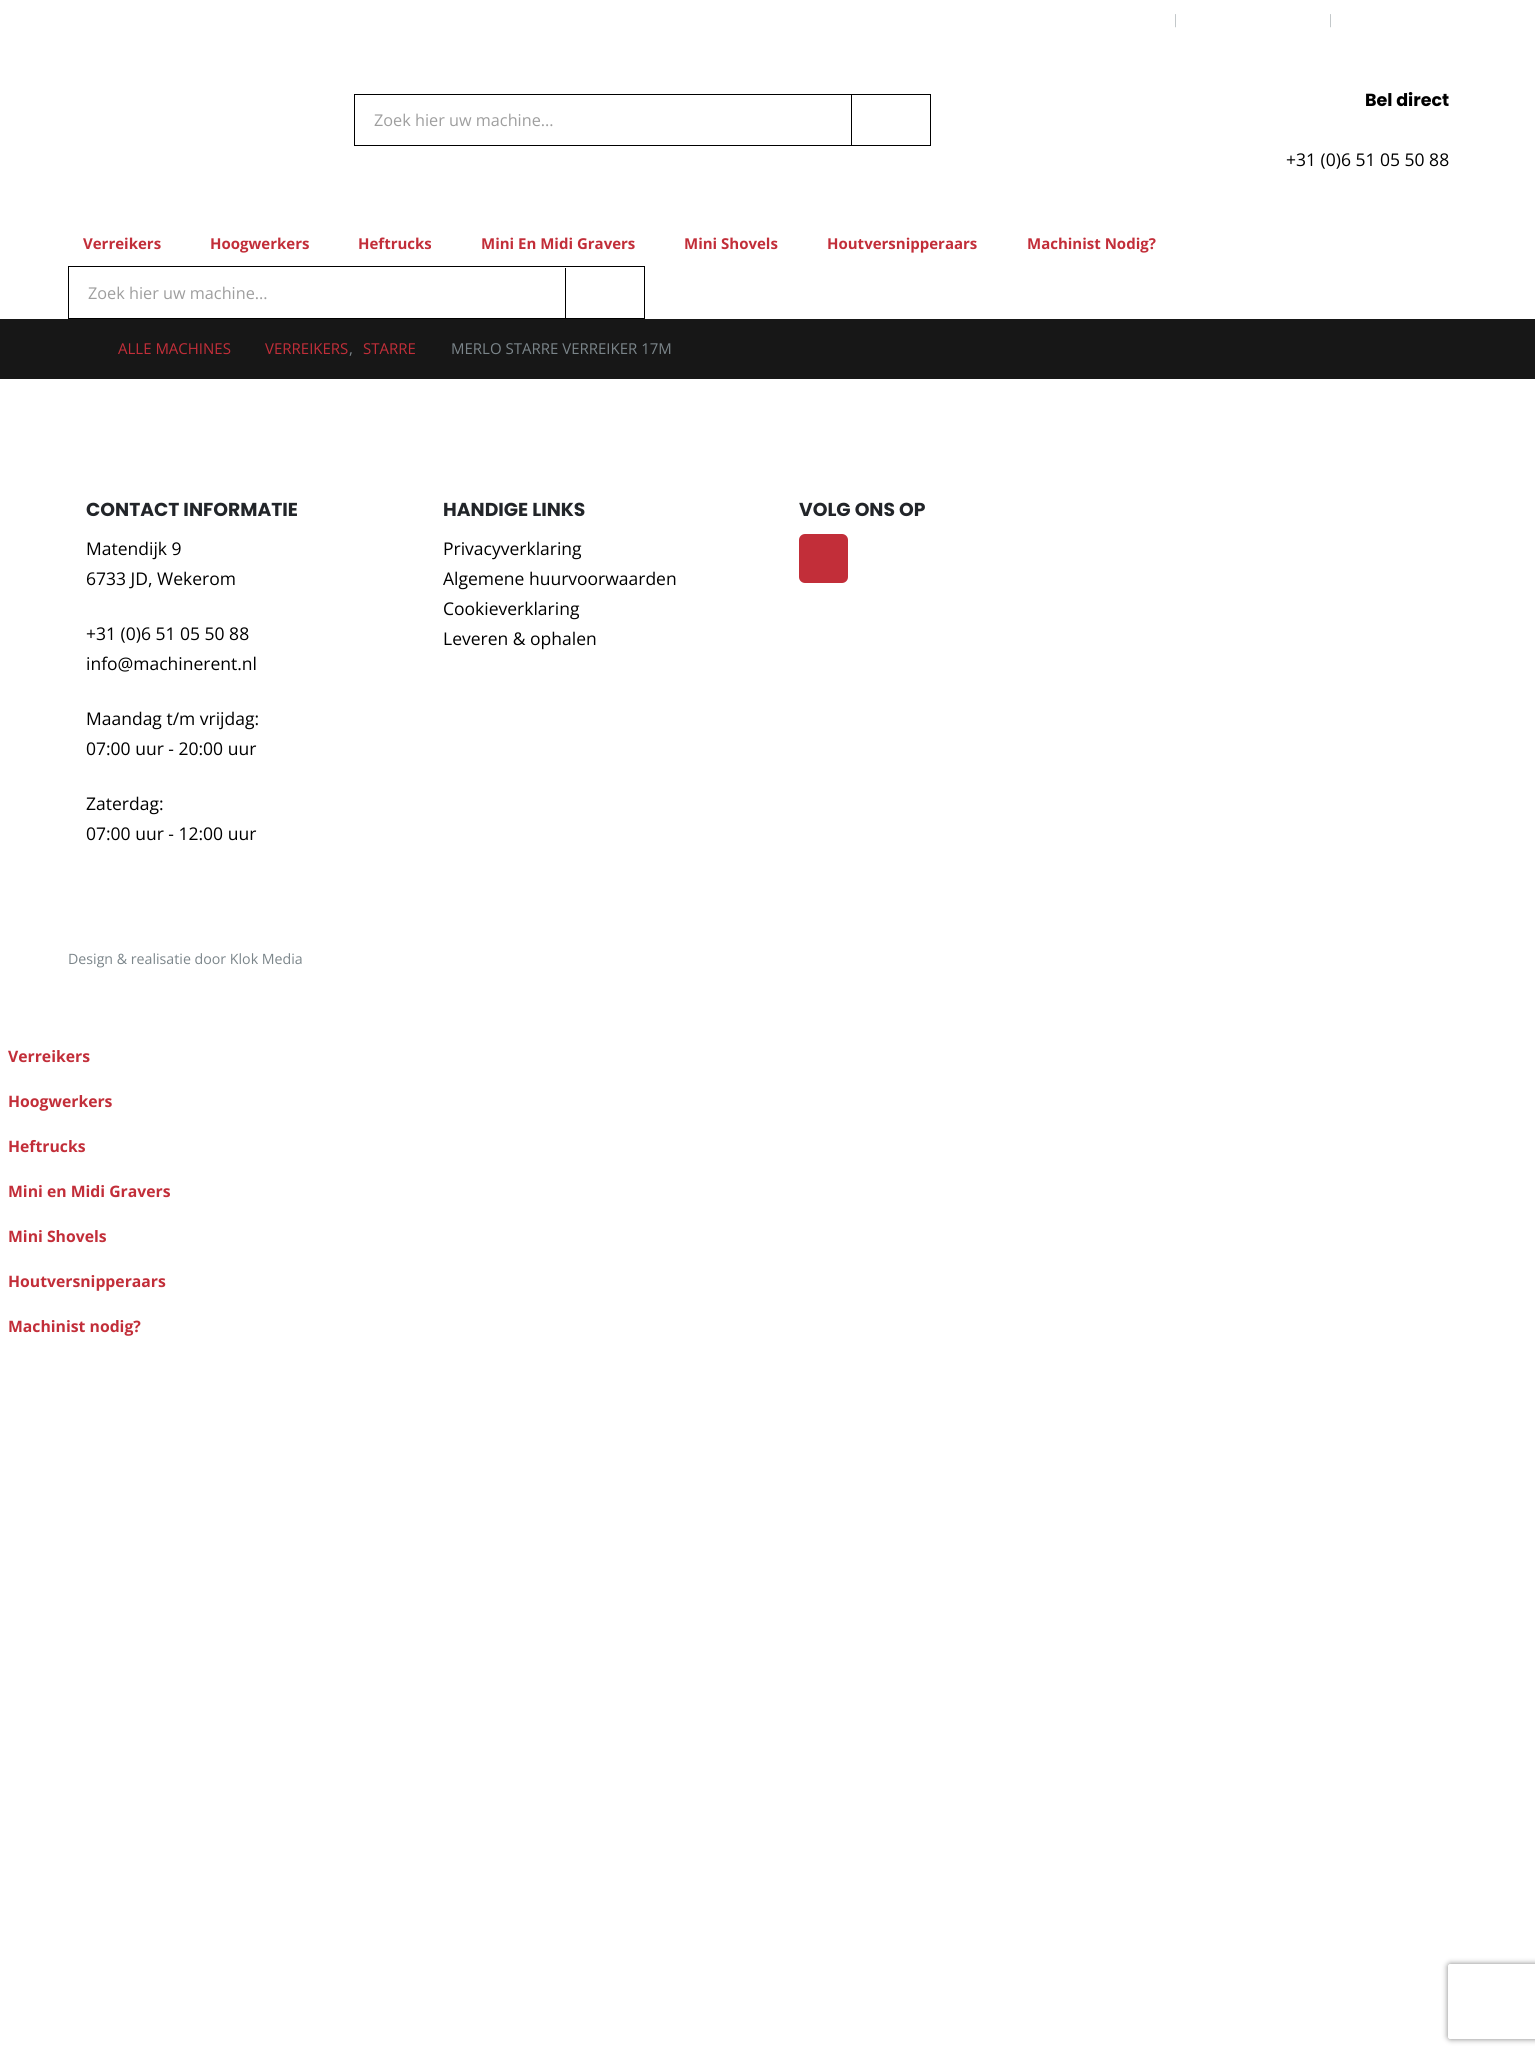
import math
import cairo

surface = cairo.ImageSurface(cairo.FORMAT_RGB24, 1535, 2056)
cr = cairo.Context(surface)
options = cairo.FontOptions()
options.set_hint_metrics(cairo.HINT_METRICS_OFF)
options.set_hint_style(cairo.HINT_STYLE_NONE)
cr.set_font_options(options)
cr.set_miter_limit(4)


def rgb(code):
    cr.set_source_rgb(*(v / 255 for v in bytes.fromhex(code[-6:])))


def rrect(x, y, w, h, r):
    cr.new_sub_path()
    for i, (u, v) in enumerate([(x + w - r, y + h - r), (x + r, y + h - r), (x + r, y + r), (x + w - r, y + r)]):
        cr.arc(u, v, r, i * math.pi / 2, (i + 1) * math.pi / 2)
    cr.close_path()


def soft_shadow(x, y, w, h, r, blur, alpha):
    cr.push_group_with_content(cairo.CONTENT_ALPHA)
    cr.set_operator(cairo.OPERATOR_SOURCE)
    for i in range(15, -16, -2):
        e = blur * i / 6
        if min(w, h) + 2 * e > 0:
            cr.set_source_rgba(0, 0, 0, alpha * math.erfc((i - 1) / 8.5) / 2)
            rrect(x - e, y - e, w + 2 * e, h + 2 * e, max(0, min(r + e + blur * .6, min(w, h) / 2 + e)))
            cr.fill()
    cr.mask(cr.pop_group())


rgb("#ffffff")
cr.paint()
cr.rectangle(354.5, 94.5, 576, 51)
rgb("#000000")
cr.set_line_width(1)
cr.stroke()
cr.rectangle(851, 95, 1, 50)
cr.fill()
cr.rectangle(68.5, 266.5, 576, 52)
cr.stroke()
cr.rectangle(565, 268, 1, 50)
cr.fill()
rgb("#171717")
cr.rectangle(0, 319, 1535, 60)
cr.fill()
rgb("#c22e39")
rrect(799, 534, 49, 49, 6)
cr.fill()
cr.save()
cr.set_fill_rule(cairo.FILL_RULE_EVEN_ODD)
cr.new_path()
cr.move_to(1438, 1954)
cr.line_to(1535, 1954)
cr.line_to(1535, 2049)
cr.line_to(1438, 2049)
cr.close_path()
cr.move_to(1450.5, 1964)
cr.line_to(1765.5, 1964)
cr.curve_to(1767, 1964, 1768, 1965, 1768, 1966.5)
cr.line_to(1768, 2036.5)
cr.curve_to(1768, 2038, 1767, 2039, 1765.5, 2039)
cr.line_to(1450.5, 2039)
cr.curve_to(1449, 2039, 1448, 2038, 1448, 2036.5)
cr.line_to(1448, 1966.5)
cr.curve_to(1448, 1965, 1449, 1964, 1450.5, 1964)
cr.close_path()
cr.clip()
rgb("#808080")
soft_shadow(1448, 1964, 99, 75, 2.5, 3, 1)
cr.restore()
cr.select_font_face("Open Sans Light")
cr.set_font_size(13)
rgb("#959da1")
cr.move_to(1172, 24)
cr.show_text("|")
cr.move_to(1327, 24)
cr.show_text("|")
cr.select_font_face("Open Sans")
cr.set_font_size(16.25)
rgb("#9e9e9e")
cr.move_to(374, 126)
cr.show_text("Zoek hier uw machine...")
cr.select_font_face("Poppins", cairo.FONT_SLANT_NORMAL, cairo.FONT_WEIGHT_BOLD)
cr.set_font_size(17.5)
rgb("#000000")
cr.move_to(1365, 106)
cr.show_text("Bel direct")
cr.select_font_face("Open Sans")
cr.move_to(1286, 166)
cr.show_text("+31 (0)6 51 05 50 88")
cr.select_font_face("Open Sans", cairo.FONT_SLANT_NORMAL, cairo.FONT_WEIGHT_BOLD)
cr.set_font_size(15)
rgb("#c22e39")
for x, y, s in [
    (83, 249, "Verreikers"),
    (210, 249, "Hoogwerkers"),
    (358, 249, "Heftrucks"),
    (481, 249, "Mini En Midi Gravers"),
    (684, 249, "Mini Shovels"),
    (827, 249, "Houtversnipperaars"),
    (1027, 249, "Machinist Nodig?"),
]:
    cr.move_to(x, y)
    cr.show_text(s)
cr.select_font_face("Open Sans")
cr.set_font_size(16.25)
rgb("#9e9e9e")
cr.move_to(88, 299)
cr.show_text("Zoek hier uw machine...")
cr.set_font_size(15)
rgb("#c22e39")
cr.move_to(118, 354)
cr.show_text("ALLE MACHINES")
cr.move_to(265, 354)
cr.show_text("VERREIKERS")
rgb("#7b858a")
cr.move_to(349, 354)
cr.show_text(",")
rgb("#c22e39")
cr.move_to(363, 354)
cr.show_text("STARRE")
rgb("#7b858a")
cr.move_to(451, 354)
cr.show_text("MERLO STARRE VERREIKER 17M")
cr.select_font_face("Poppins", cairo.FONT_SLANT_NORMAL, cairo.FONT_WEIGHT_BOLD)
cr.set_font_size(18.75)
rgb("#222529")
cr.move_to(86, 516)
cr.show_text("CONTACT INFORMATIE")
cr.select_font_face("Open Sans")
cr.set_font_size(17.5)
rgb("#000000")
for x, y, s in [
    (86, 555, "Matendijk 9"),
    (86, 585, "6733 JD, Wekerom"),
    (86, 640, "+31 (0)6 51 05 50 88"),
    (86, 670, "info@machinerent.nl"),
    (86, 725, "Maandag t/m vrijdag:"),
    (86, 755, "07:00 uur - 20:00 uur"),
    (86, 810, "Zaterdag:"),
    (86, 840, "07:00 uur - 12:00 uur"),
]:
    cr.move_to(x, y)
    cr.show_text(s)
cr.select_font_face("Poppins", cairo.FONT_SLANT_NORMAL, cairo.FONT_WEIGHT_BOLD)
cr.set_font_size(18.75)
rgb("#222529")
cr.move_to(443, 516)
cr.show_text("HANDIGE LINKS")
cr.select_font_face("Open Sans")
cr.set_font_size(17.5)
rgb("#000000")
for x, y, s in [
    (443, 555, "Privacyverklaring"),
    (443, 585, "Algemene huurvoorwaarden"),
    (443, 615, "Cookieverklaring"),
    (443, 645, "Leveren & ophalen"),
]:
    cr.move_to(x, y)
    cr.show_text(s)
cr.select_font_face("Poppins", cairo.FONT_SLANT_NORMAL, cairo.FONT_WEIGHT_BOLD)
cr.set_font_size(18.75)
rgb("#222529")
cr.move_to(799, 516)
cr.show_text("VOLG ONS OP")
cr.select_font_face("Open Sans")
cr.set_font_size(14.2)
rgb("#7b858a")
cr.move_to(68, 964)
cr.show_text("Design & realisatie door Klok Media")
cr.select_font_face("Open Sans", cairo.FONT_SLANT_NORMAL, cairo.FONT_WEIGHT_BOLD)
cr.set_font_size(15.75)
rgb("#c22e39")
for x, y, s in [
    (8, 1062, "Verreikers"),
    (8, 1107, "Hoogwerkers"),
    (8, 1152, "Heftrucks"),
    (8, 1197, "Mini en Midi Gravers"),
    (8, 1242, "Mini Shovels"),
    (8, 1287, "Houtversnipperaars"),
    (8, 1332, "Machinist nodig?"),
]:
    cr.move_to(x, y)
    cr.show_text(s)
surface.write_to_png("page.png")
